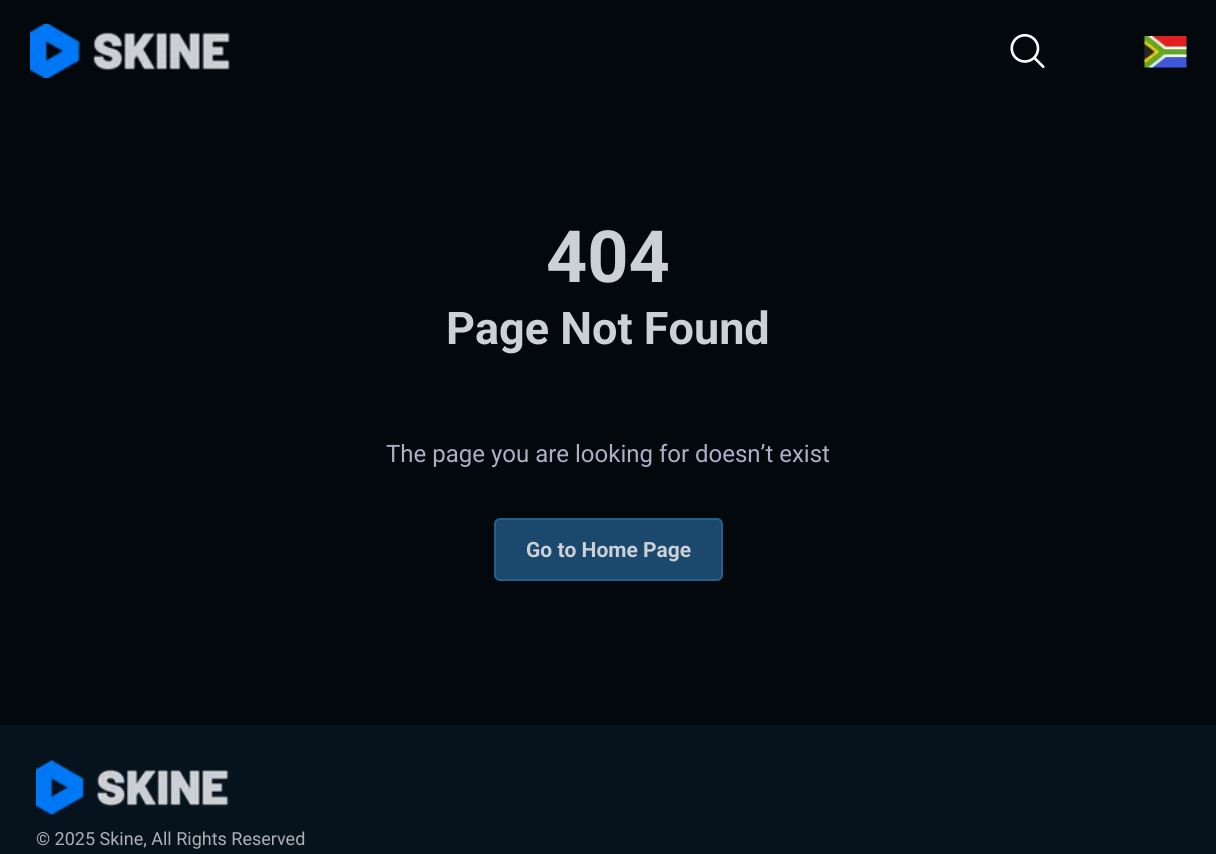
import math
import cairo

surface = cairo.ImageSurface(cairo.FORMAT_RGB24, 1216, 854)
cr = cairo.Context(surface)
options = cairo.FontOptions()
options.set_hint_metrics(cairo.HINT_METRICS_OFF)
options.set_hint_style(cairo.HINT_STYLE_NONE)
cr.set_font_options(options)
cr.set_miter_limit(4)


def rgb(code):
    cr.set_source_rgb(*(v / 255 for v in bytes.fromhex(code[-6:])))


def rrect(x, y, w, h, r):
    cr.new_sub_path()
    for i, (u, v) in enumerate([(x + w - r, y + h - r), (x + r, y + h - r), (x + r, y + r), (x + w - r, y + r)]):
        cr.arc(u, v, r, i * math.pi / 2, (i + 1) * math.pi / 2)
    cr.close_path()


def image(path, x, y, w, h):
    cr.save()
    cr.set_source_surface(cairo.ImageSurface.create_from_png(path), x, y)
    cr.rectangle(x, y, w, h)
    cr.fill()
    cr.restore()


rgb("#03080c")
cr.paint()
image("img/1.png", 30, 24, 200, 54)
image("img/2.png", 1010, 33, 35, 36)
image("img/3.png", 1144, 36, 43, 32)
rgb("#1b496e")
rrect(495, 519, 227, 61, 5)
cr.fill_preserve()
rgb("#245f8f")
cr.stroke()
rgb("#07131c")
cr.rectangle(0, 725, 1216, 129)
cr.fill()
image("img/4.png", 36, 760, 193, 55)
cr.select_font_face("Roboto", cairo.FONT_SLANT_NORMAL, cairo.FONT_WEIGHT_BOLD)
cr.set_font_size(72)
rgb("#cdd0d5")
cr.move_to(546, 282)
cr.show_text("404")
cr.set_font_size(45)
cr.move_to(446, 344)
cr.show_text("Page Not Found")
cr.select_font_face("Roboto")
cr.set_font_size(24)
rgb("#abb0c7")
cr.move_to(386, 462)
cr.show_text("The page you are looking for doesn’t exist")
cr.select_font_face("Roboto", cairo.FONT_SLANT_NORMAL, cairo.FONT_WEIGHT_BOLD)
cr.set_font_size(21)
rgb("#cdd0d5")
cr.move_to(526, 557)
cr.show_text("Go to Home Page")
cr.select_font_face("Roboto")
cr.set_font_size(18)
rgb("#acb0ba")
cr.move_to(36, 845)
cr.show_text("© 2025 Skine, All Rights Reserved")
surface.write_to_png("page.png")
